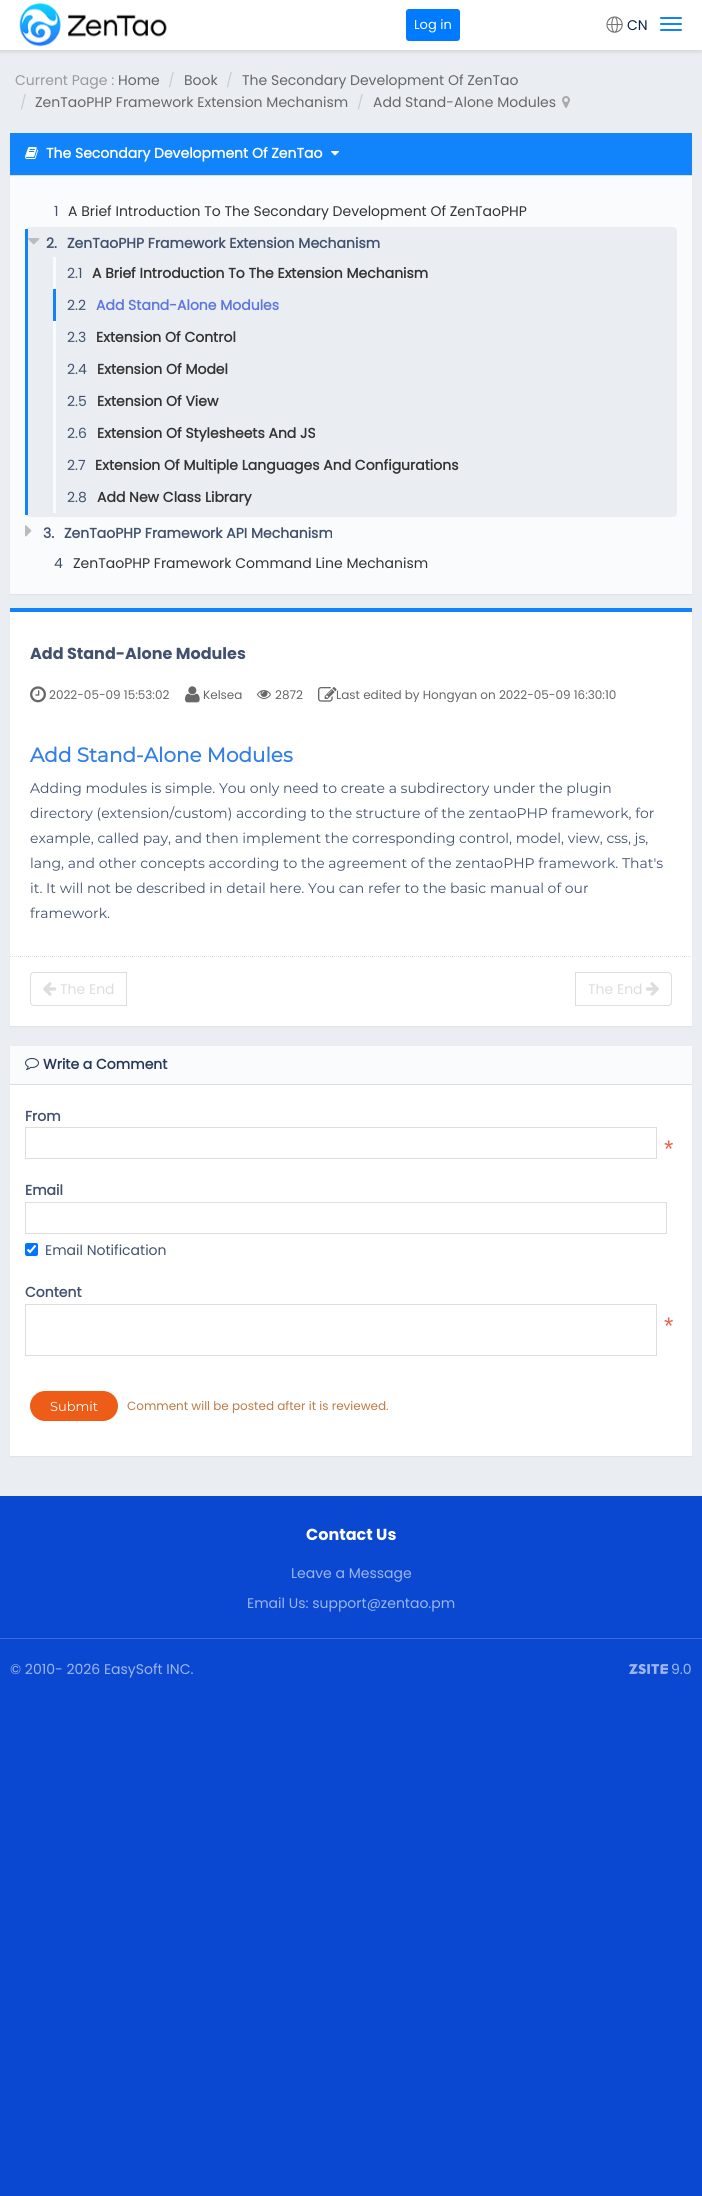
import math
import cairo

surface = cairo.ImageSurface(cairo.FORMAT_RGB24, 702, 2196)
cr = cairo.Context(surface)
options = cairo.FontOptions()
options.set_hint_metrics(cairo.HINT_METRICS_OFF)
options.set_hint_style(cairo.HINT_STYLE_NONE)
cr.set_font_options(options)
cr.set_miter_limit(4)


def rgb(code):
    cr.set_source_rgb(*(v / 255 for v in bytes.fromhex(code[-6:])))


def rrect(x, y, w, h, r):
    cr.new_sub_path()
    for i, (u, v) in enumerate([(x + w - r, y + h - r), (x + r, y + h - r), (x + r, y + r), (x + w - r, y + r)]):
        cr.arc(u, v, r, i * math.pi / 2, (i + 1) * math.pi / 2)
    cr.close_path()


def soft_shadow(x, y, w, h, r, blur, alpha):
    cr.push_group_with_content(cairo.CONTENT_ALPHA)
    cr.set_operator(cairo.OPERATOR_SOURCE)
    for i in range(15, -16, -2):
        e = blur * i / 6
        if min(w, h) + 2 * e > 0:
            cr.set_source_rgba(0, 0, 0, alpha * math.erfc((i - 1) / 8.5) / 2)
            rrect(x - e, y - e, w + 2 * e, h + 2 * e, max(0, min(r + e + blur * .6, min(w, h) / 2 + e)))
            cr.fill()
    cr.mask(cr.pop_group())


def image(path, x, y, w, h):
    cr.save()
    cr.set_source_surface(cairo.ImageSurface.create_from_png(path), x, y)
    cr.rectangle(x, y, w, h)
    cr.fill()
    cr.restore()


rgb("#0a48d1")
cr.paint()
rgb("#eaeef3")
cr.rectangle(0, 50, 702, 1446)
cr.fill()
rgb("#000000")
soft_shadow(0, 2, 702, 50, 0, 2, 0.1)
rgb("#ffffff")
cr.rectangle(0, 0, 702, 50)
cr.fill()
image("img/1.png", 19, 2, 148, 45)
rgb("#007aff")
rrect(406, 9, 54, 32, 3)
cr.fill()
image("img/2.png", 606, 16, 17, 17)
rgb("#1183fb")
rrect(660, 17, 22, 2, 1)
cr.fill()
rrect(660, 23, 22, 2, 1)
cr.fill()
rrect(660, 29, 22, 2, 1)
cr.fill()
image("img/3.png", 562, 96, 8, 12)
rgb("#000000")
soft_shadow(10, 134, 682, 461, 0, 0.5, 0.05)
rgb("#1183fb")
cr.rectangle(10, 133, 682, 42)
cr.fill()
rgb("#dddddd")
cr.rectangle(10, 175, 682, 1)
cr.fill()
image("img/4.png", 25, 147, 13, 12)
image("img/5.png", 331, 151, 8, 5)
rgb("#fafbfc")
cr.rectangle(10, 176, 682, 418)
cr.fill()
rgb("#eaeef3")
rrect(25, 227, 652, 290, 4)
cr.fill()
rgb("#1183fb")
cr.rectangle(25, 229, 3, 286)
cr.fill()
image("img/6.png", 28, 238, 12, 7)
for x, y, w, h, color in [
    (53, 257, 3, 32, "#fafbfc"),
    (53, 289, 3, 32, "#1183fb"),
    (53, 321, 3, 192, "#fafbfc"),
]:
    rgb(color)
    cr.rectangle(x, y, w, h)
    cr.fill()
image("img/7.png", 25, 525, 7, 12)
rgb("#000000")
soft_shadow(10, 609, 682, 418, 0, 0.5, 0.05)
rgb("#ffffff")
cr.rectangle(10, 612, 682, 414)
cr.fill()
rgb("#1183fb")
cr.rectangle(10, 608, 682, 4)
cr.fill()
image("img/8.png", 30, 686, 16, 17)
image("img/9.png", 185, 686, 15, 17)
image("img/10.png", 257, 690, 14, 9)
image("img/11.png", 318, 687, 19, 15)
cr.new_path()
cr.move_to(10, 956.5)
cr.line_to(692, 956.5)
rgb("#dddddd")
cr.set_line_width(1)
cr.set_dash([1, 1])
cr.stroke()
cr.new_path()
cr.move_to(34, 972.5)
cr.line_to(126.5, 972.5)
cr.line_to(126.5, 1005.5)
cr.line_to(34, 1005.5)
cr.curve_to(32, 1005.5, 30.5, 1004, 30.5, 1002)
cr.line_to(30.5, 976)
cr.curve_to(30.5, 974, 32, 972.5, 34, 972.5)
cr.close_path()
cr.set_dash([])
cr.stroke()
image("img/12.png", 43, 982, 13, 14)
cr.new_path()
cr.move_to(575.5, 972.5)
cr.line_to(668, 972.5)
cr.curve_to(670, 972.5, 671.5, 974, 671.5, 976)
cr.line_to(671.5, 1002)
cr.curve_to(671.5, 1004, 670, 1005.5, 668, 1005.5)
cr.line_to(575.5, 1005.5)
cr.close_path()
cr.stroke()
image("img/13.png", 646, 982, 13, 14)
rgb("#000000")
soft_shadow(10, 1047, 682, 410, 0, 0.5, 0.05)
for x, y, w, h, color in [
    (10, 1085, 682, 371, "#ffffff"),
    (10, 1046, 682, 38, "#fafbfc"),
    (10, 1084, 682, 1, "#dddddd"),
]:
    rgb(color)
    cr.rectangle(x, y, w, h)
    cr.fill()
image("img/14.png", 25, 1058, 14, 12)
cr.rectangle(25.5, 1127.5, 631, 31)
cr.stroke()
cr.rectangle(25.5, 1202.5, 641, 31)
cr.stroke()
rgb("#0075ff")
rrect(25, 1243, 13, 13, 2)
cr.fill()
cr.new_path()
cr.move_to(27.5, 1249.5)
cr.line_to(30, 1252)
cr.line_to(35.5, 1245.5)
rgb("#ffffff")
cr.set_line_width(2.1)
cr.stroke()
cr.rectangle(25.5, 1304.5, 631, 51)
rgb("#dddddd")
cr.set_line_width(1)
cr.stroke()
rgb("#ed5d18")
rrect(30, 1391, 88, 30, 15)
cr.fill()
rgb("#3b6dda")
cr.rectangle(0, 1638, 702, 1)
cr.fill()
image("img/15.png", 629, 1664, 39, 10)
cr.select_font_face("Poppins")
cr.set_font_size(13)
rgb("#ffffff")
cr.move_to(414, 29)
cr.show_text("Log in")
cr.set_font_size(14)
rgb("#0c2243")
cr.move_to(627, 30)
cr.show_text("CN")
rgb("#999999")
cr.move_to(15, 85)
cr.show_text("Current Page :")
rgb("#666666")
cr.move_to(118, 85)
cr.show_text("Home")
rgb("#cccccc")
cr.move_to(168, 85)
cr.show_text("/")
rgb("#666666")
cr.move_to(184, 85)
cr.show_text("Book")
rgb("#cccccc")
cr.move_to(226, 85)
cr.show_text("/")
rgb("#666666")
cr.move_to(242, 85)
cr.show_text("The Secondary Development Of ZenTao")
rgb("#cccccc")
cr.move_to(20, 107)
cr.show_text("/")
rgb("#666666")
cr.move_to(35, 107)
cr.show_text("ZenTaoPHP Framework Extension Mechanism")
rgb("#cccccc")
cr.move_to(357, 107)
cr.show_text("/")
rgb("#666666")
cr.move_to(373, 107)
cr.show_text("Add Stand-Alone Modules")
cr.select_font_face("Poppins", cairo.FONT_SLANT_NORMAL, cairo.FONT_WEIGHT_BOLD)
rgb("#ffffff")
cr.move_to(46, 158)
cr.show_text("The Secondary Development Of ZenTao")
cr.select_font_face("Poppins")
rgb("#42526e")
cr.move_to(54, 216)
cr.show_text("1")
rgb("#333333")
cr.move_to(68, 216)
cr.show_text("A Brief Introduction To The Secondary Development Of ZenTaoPHP")
cr.select_font_face("Poppins", cairo.FONT_SLANT_NORMAL, cairo.FONT_WEIGHT_BOLD)
rgb("#42526e")
cr.move_to(46, 248)
cr.show_text("2.")
cr.move_to(67, 248)
cr.show_text("ZenTaoPHP Framework Extension Mechanism")
cr.select_font_face("Poppins")
cr.move_to(67, 278)
cr.show_text("2.1")
cr.select_font_face("Poppins", cairo.FONT_SLANT_NORMAL, cairo.FONT_WEIGHT_BOLD)
rgb("#333333")
cr.move_to(92, 278)
cr.show_text("A Brief Introduction To The Extension Mechanism")
cr.select_font_face("Poppins")
rgb("#42526e")
cr.move_to(67, 310)
cr.show_text("2.2")
cr.select_font_face("Poppins", cairo.FONT_SLANT_NORMAL, cairo.FONT_WEIGHT_BOLD)
rgb("#5c76df")
cr.move_to(96, 310)
cr.show_text("Add Stand-Alone Modules")
cr.select_font_face("Poppins")
rgb("#42526e")
cr.move_to(67, 342)
cr.show_text("2.3")
cr.select_font_face("Poppins", cairo.FONT_SLANT_NORMAL, cairo.FONT_WEIGHT_BOLD)
rgb("#333333")
cr.move_to(96, 342)
cr.show_text("Extension Of Control")
cr.select_font_face("Poppins")
rgb("#42526e")
cr.move_to(67, 374)
cr.show_text("2.4")
cr.select_font_face("Poppins", cairo.FONT_SLANT_NORMAL, cairo.FONT_WEIGHT_BOLD)
rgb("#333333")
cr.move_to(97, 374)
cr.show_text("Extension Of Model")
cr.select_font_face("Poppins")
rgb("#42526e")
cr.move_to(67, 406)
cr.show_text("2.5")
cr.select_font_face("Poppins", cairo.FONT_SLANT_NORMAL, cairo.FONT_WEIGHT_BOLD)
rgb("#333333")
cr.move_to(97, 406)
cr.show_text("Extension Of View")
cr.select_font_face("Poppins")
rgb("#42526e")
cr.move_to(67, 438)
cr.show_text("2.6")
cr.select_font_face("Poppins", cairo.FONT_SLANT_NORMAL, cairo.FONT_WEIGHT_BOLD)
rgb("#333333")
cr.move_to(97, 438)
cr.show_text("Extension Of Stylesheets And JS")
cr.select_font_face("Poppins")
rgb("#42526e")
cr.move_to(67, 470)
cr.show_text("2.7")
cr.select_font_face("Poppins", cairo.FONT_SLANT_NORMAL, cairo.FONT_WEIGHT_BOLD)
rgb("#333333")
cr.move_to(95, 470)
cr.show_text("Extension Of Multiple Languages And Configurations")
cr.select_font_face("Poppins")
rgb("#42526e")
cr.move_to(67, 502)
cr.show_text("2.8")
cr.select_font_face("Poppins", cairo.FONT_SLANT_NORMAL, cairo.FONT_WEIGHT_BOLD)
rgb("#333333")
cr.move_to(97, 502)
cr.show_text("Add New Class Library")
rgb("#42526e")
cr.move_to(43, 538)
cr.show_text("3.")
cr.move_to(64, 538)
cr.show_text("ZenTaoPHP Framework API Mechanism")
cr.select_font_face("Poppins")
cr.move_to(54, 568)
cr.show_text("4")
rgb("#333333")
cr.move_to(73, 568)
cr.show_text("ZenTaoPHP Framework Command Line Mechanism")
cr.select_font_face("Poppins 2", cairo.FONT_SLANT_NORMAL, cairo.FONT_WEIGHT_BOLD)
cr.set_font_size(16)
rgb("#42526e")
cr.move_to(30, 659)
cr.show_text("Add Stand-Alone Modules")
cr.select_font_face("Poppins")
cr.set_font_size(12)
rgb("#666666")
for x, y, s in [
    (49, 699, "2022-05-09 15:53:02"),
    (203, 699, "Kelsea"),
    (275, 699, "2872"),
    (336, 699, "Last edited by Hongyan on 2022-05-09 16:30:10"),
]:
    cr.move_to(x, y)
    cr.show_text(s)
cr.select_font_face("Montserrat", cairo.FONT_SLANT_NORMAL, cairo.FONT_WEIGHT_BOLD)
cr.set_font_size(20)
rgb("#337fe5")
cr.move_to(30, 762)
cr.show_text("Add Stand-Alone Modules")
cr.select_font_face("Montserrat")
cr.set_font_size(14)
rgb("#42526e")
for x, y, s in [
    (30, 793, "Adding modules is simple. You only need to create a subdirectory under the plugin"),
    (30, 818, "directory (extension/custom) according to the structure of the zentaoPHP framework, for"),
    (30, 843, "example, called pay, and then implement the corresponding control, model, view, css, js,"),
    (30, 868, "lang, and other concepts according to the agreement of the zentaoPHP framework. That's"),
    (30, 893, "it. It will not be described in detail here. You can refer to the basic manual of our"),
    (30, 918, "framework."),
]:
    cr.move_to(x, y)
    cr.show_text(s)
cr.select_font_face("Poppins")
rgb("#dddddd")
cr.move_to(60, 994)
cr.show_text("The End")
cr.move_to(588, 994)
cr.show_text("The End")
cr.select_font_face("Poppins", cairo.FONT_SLANT_NORMAL, cairo.FONT_WEIGHT_BOLD)
rgb("#253858")
cr.move_to(43, 1069)
cr.show_text("Write a Comment")
rgb("#42526e")
cr.move_to(25, 1121)
cr.show_text("From")
cr.select_font_face("Liberation Sans")
cr.set_font_size(24)
rgb("#ea644a")
cr.move_to(664, 1157)
cr.show_text("*")
cr.select_font_face("Poppins", cairo.FONT_SLANT_NORMAL, cairo.FONT_WEIGHT_BOLD)
cr.set_font_size(14)
rgb("#42526e")
cr.move_to(25, 1195)
cr.show_text("Email")
cr.select_font_face("Poppins")
cr.move_to(45, 1255)
cr.show_text("Email Notification")
cr.select_font_face("Poppins", cairo.FONT_SLANT_NORMAL, cairo.FONT_WEIGHT_BOLD)
cr.move_to(25, 1297)
cr.show_text("Content")
cr.select_font_face("Liberation Sans")
cr.set_font_size(24)
rgb("#ea644a")
cr.move_to(664, 1334)
cr.show_text("*")
cr.select_font_face("Montserrat")
cr.set_font_size(13)
rgb("#ffffff")
cr.move_to(50, 1411)
cr.show_text("Submit")
cr.select_font_face("Poppins")
cr.set_font_size(12)
rgb("#bd7b46")
cr.move_to(127, 1410)
cr.show_text("Comment will be posted after it is reviewed.")
cr.select_font_face("Poppins 2", cairo.FONT_SLANT_NORMAL, cairo.FONT_WEIGHT_BOLD)
cr.set_font_size(16)
rgb("#ffffff")
cr.move_to(306, 1540)
cr.show_text("Contact Us")
cr.select_font_face("Poppins")
cr.set_font_size(14)
rgb("#9db6ed")
for x, y, s in [
    (291, 1578, "Leave a Message"),
    (247, 1608, "Email Us: support@zentao.pm"),
    (10, 1674, "© 2010- 2026 EasySoft INC."),
    (671, 1674, "9.0"),
]:
    cr.move_to(x, y)
    cr.show_text(s)
surface.write_to_png("page.png")
